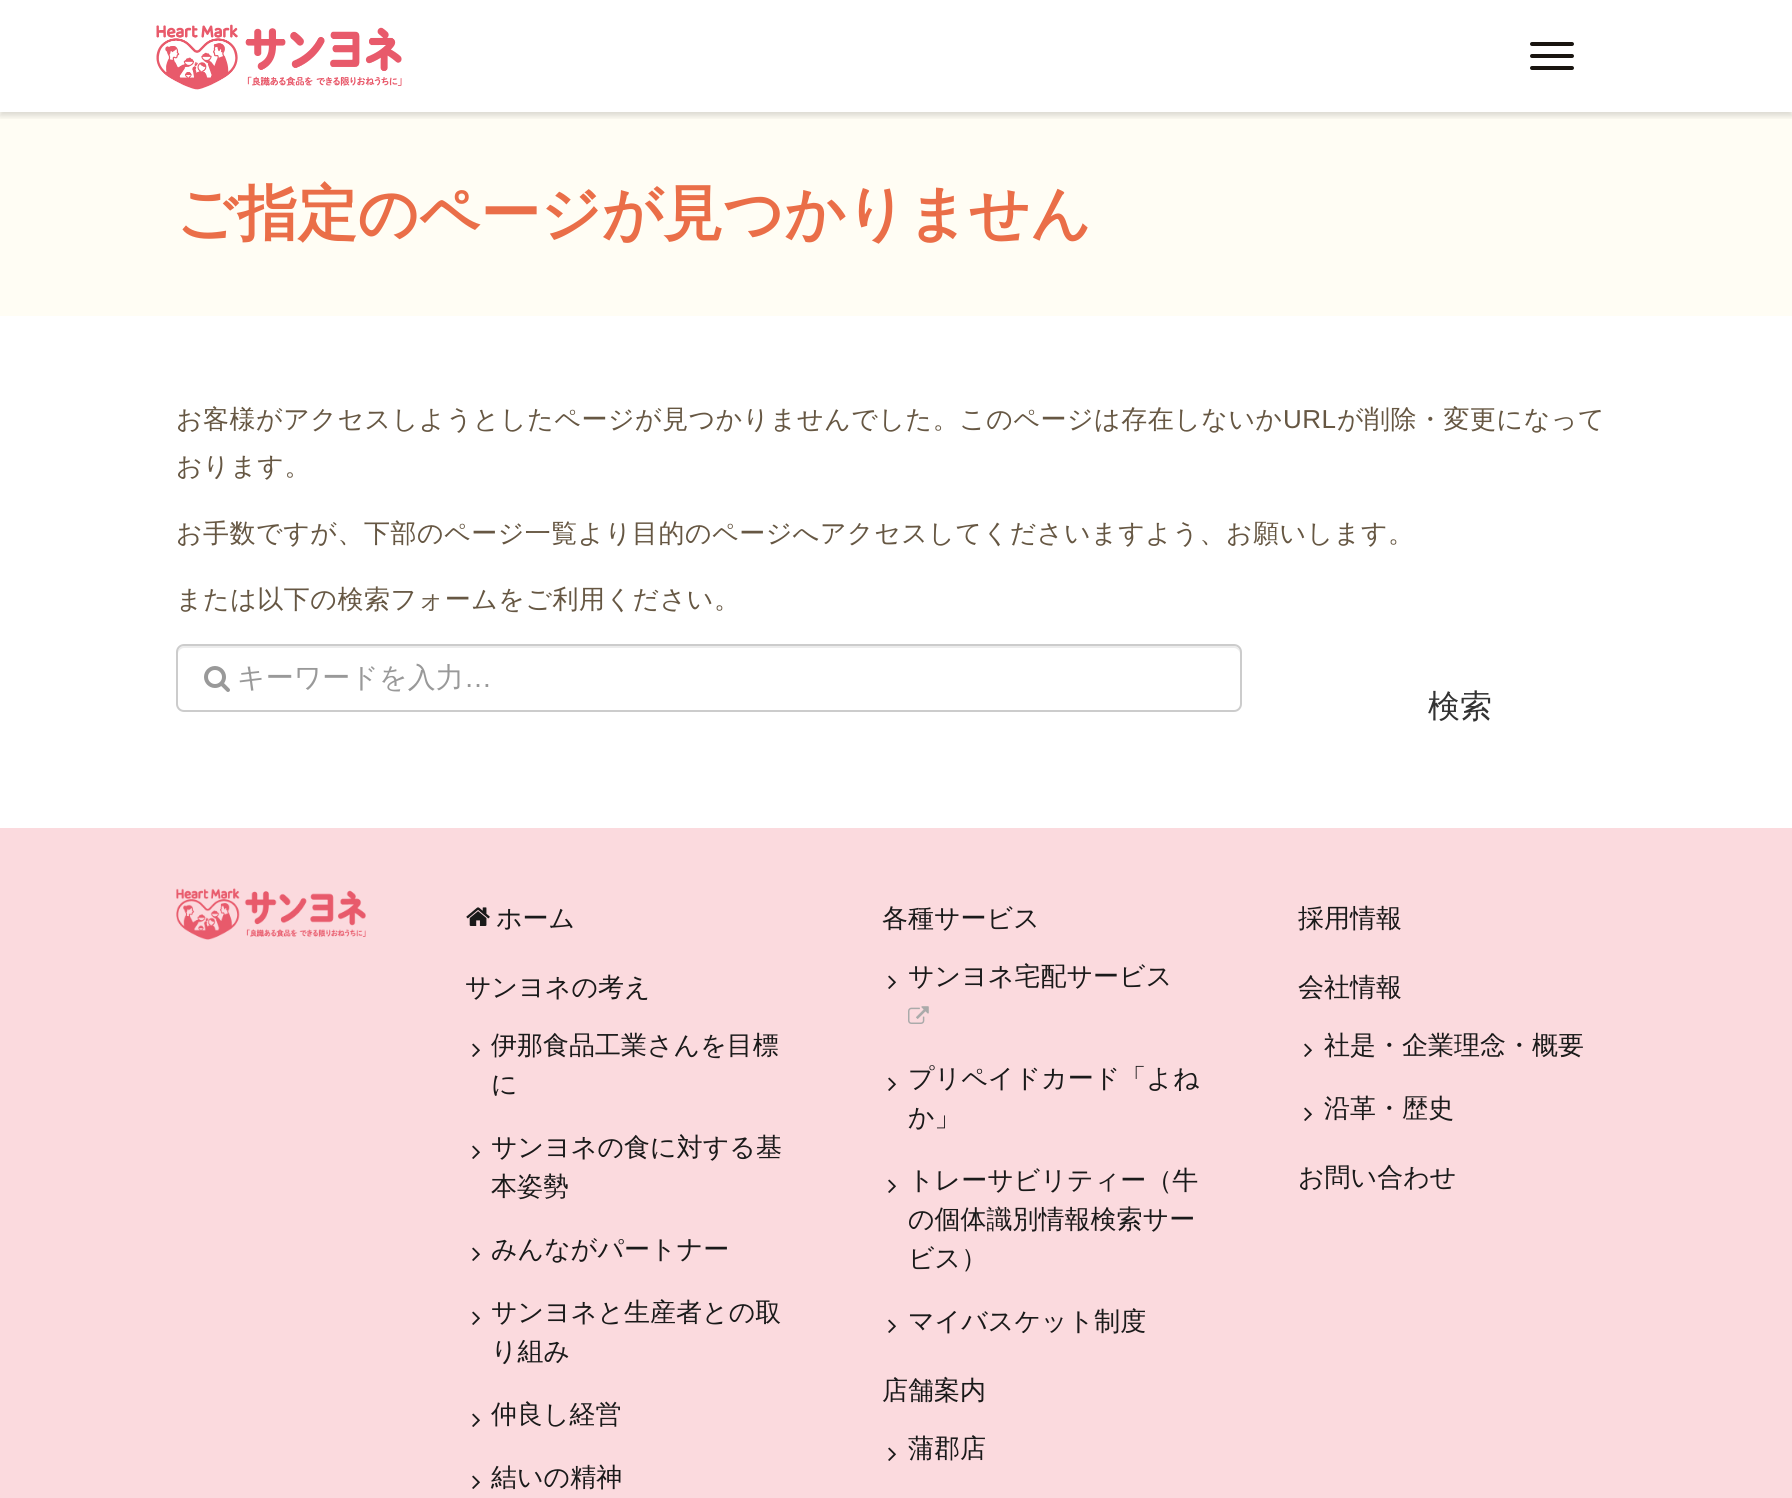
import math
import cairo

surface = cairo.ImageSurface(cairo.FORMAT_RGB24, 1792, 1498)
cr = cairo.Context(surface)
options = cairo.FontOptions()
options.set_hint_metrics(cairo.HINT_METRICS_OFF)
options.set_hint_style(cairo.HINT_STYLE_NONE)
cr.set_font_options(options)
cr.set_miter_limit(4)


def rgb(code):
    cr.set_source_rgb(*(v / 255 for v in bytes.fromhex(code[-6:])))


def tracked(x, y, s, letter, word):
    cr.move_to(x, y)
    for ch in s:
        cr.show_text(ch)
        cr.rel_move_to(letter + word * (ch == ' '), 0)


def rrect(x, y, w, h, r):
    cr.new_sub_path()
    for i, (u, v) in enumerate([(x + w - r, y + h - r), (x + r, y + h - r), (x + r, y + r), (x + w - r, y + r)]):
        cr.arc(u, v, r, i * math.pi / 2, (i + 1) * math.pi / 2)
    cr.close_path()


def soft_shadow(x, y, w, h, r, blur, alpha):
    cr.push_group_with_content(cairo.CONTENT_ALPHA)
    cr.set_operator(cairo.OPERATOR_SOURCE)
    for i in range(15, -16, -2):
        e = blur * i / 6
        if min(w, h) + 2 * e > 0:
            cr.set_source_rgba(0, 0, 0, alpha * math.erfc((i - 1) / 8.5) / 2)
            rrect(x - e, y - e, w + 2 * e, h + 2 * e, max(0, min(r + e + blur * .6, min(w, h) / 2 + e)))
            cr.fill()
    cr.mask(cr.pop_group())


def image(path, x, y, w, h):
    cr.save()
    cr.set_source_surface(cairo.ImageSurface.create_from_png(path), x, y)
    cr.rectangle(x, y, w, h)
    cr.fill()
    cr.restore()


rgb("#ffffff")
cr.paint()
rgb("#fffdf4")
cr.rectangle(0, 112, 1792, 204)
cr.fill()
cr.save()
cr.rectangle(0, 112, 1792, 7)
cr.clip()
rgb("#000000")
soft_shadow(0, 4, 1792, 112, 0, 3, 0.14)
cr.restore()
image("img/1.png", 156, 24, 246, 66)
rgb("#191510")
rrect(1530, 42, 44, 4, 2)
cr.fill()
rrect(1530, 54, 44, 4, 2)
cr.fill()
rrect(1530, 66, 44, 4, 2)
cr.fill()
rgb("#ececec")
cr.new_path()
cr.move_to(184, 648)
cr.line_to(1234, 648)
cr.curve_to(1237, 648, 1240, 651, 1240, 654)
cr.line_to(1240, 652)
cr.curve_to(1240, 649, 1237, 646, 1234, 646)
cr.line_to(184, 646)
cr.curve_to(181, 646, 178, 649, 178, 652)
cr.line_to(178, 654)
cr.curve_to(178, 651, 181, 648, 184, 648)
cr.close_path()
cr.fill()
rrect(177, 645, 1064, 66, 7)
rgb("#cccccc")
cr.stroke()
image("img/2.png", 204, 666, 26, 26)
rgb("#fbdade")
cr.rectangle(0, 828, 1792, 670)
cr.fill()
image("img/3.png", 176, 888, 190, 52)
image("img/4.png", 466, 907, 24, 19)
image("img/5.png", 472, 1043, 8, 14)
image("img/5.png", 472, 1145, 8, 14)
image("img/5.png", 472, 1247, 8, 14)
image("img/5.png", 472, 1311, 8, 14)
image("img/5.png", 472, 1413, 8, 14)
image("img/5.png", 472, 1475, 8, 14)
image("img/5.png", 888, 975, 8, 14)
image("img/6.png", 908, 1006, 21, 18)
image("img/5.png", 888, 1077, 8, 14)
image("img/5.png", 888, 1179, 8, 14)
image("img/5.png", 888, 1319, 8, 14)
image("img/5.png", 888, 1447, 8, 14)
image("img/5.png", 1304, 1043, 8, 14)
image("img/5.png", 1304, 1107, 8, 14)
cr.select_font_face("WenQuanYi Zen Hei", cairo.FONT_SLANT_NORMAL, cairo.FONT_WEIGHT_BOLD)
cr.set_font_size(60)
rgb("#ea6e48")
cr.move_to(176, 234)
cr.show_text("ご指定のページが見つかりません")
cr.select_font_face("WenQuanYi Zen Hei Medium")
cr.set_font_size(26)
rgb("#665743")
tracked(176, 428, "お客様がアクセスしようとしたページが見つかりませんでした。このページは存在しないか", 0.5, 0)
cr.select_font_face("Liberation Sans")
tracked(1283, 428, "URL", 0.5, 0)
cr.select_font_face("WenQuanYi Zen Hei Medium")
for x, y, s in [
    (1337, 428, "が削除・変更になって"),
    (176, 475, "おります。"),
    (176, 542, "お手数ですが、下部のページ一覧より目的のページへアクセスしてくださいますよう、お願いします。"),
    (176, 608, "または以下の検索フォームをご利用ください。"),
]:
    tracked(x, y, s, 0.5, 0)
cr.set_font_size(28)
rgb("#999999")
cr.move_to(237, 687)
cr.show_text("キーワードを入力")
cr.select_font_face("Liberation Sans")
cr.move_to(464, 687)
cr.show_text("…")
cr.select_font_face("WenQuanYi Zen Hei Medium")
cr.set_font_size(32)
rgb("#333333")
cr.move_to(1428, 717)
cr.show_text("検索")
cr.set_font_size(26)
rgb("#1a1a1a")
for x, y, s in [
    (496, 927, "ホーム"),
    (465, 996, "サンヨネの考え"),
    (491, 1054, "伊那食品工業さんを目標"),
    (491, 1093, "に"),
    (491, 1156, "サンヨネの食に対する基"),
    (491, 1195, "本姿勢"),
    (491, 1258, "みんながパートナー"),
    (491, 1321, "サンヨネと生産者との取"),
    (491, 1360, "り組み"),
    (491, 1423, "仲良し経営"),
    (491, 1486, "結いの精神"),
    (882, 927, "各種サービス"),
    (908, 985, "サンヨネ宅配サービス"),
    (908, 1087, "プリペイドカード「よね"),
    (908, 1126, "か」"),
    (908, 1189, "トレーサビリティー（牛"),
    (908, 1228, "の個体識別情報検索サー"),
    (908, 1267, "ビス）"),
    (908, 1330, "マイバスケット制度"),
    (882, 1399, "店舗案内"),
    (908, 1457, "蒲郡店"),
    (1298, 927, "採用情報"),
    (1298, 996, "会社情報"),
    (1324, 1054, "社是・企業理念・概要"),
    (1324, 1117, "沿革・歴史"),
    (1298, 1186, "お問い合わせ"),
]:
    cr.move_to(x, y)
    cr.show_text(s)
surface.write_to_png("page.png")
